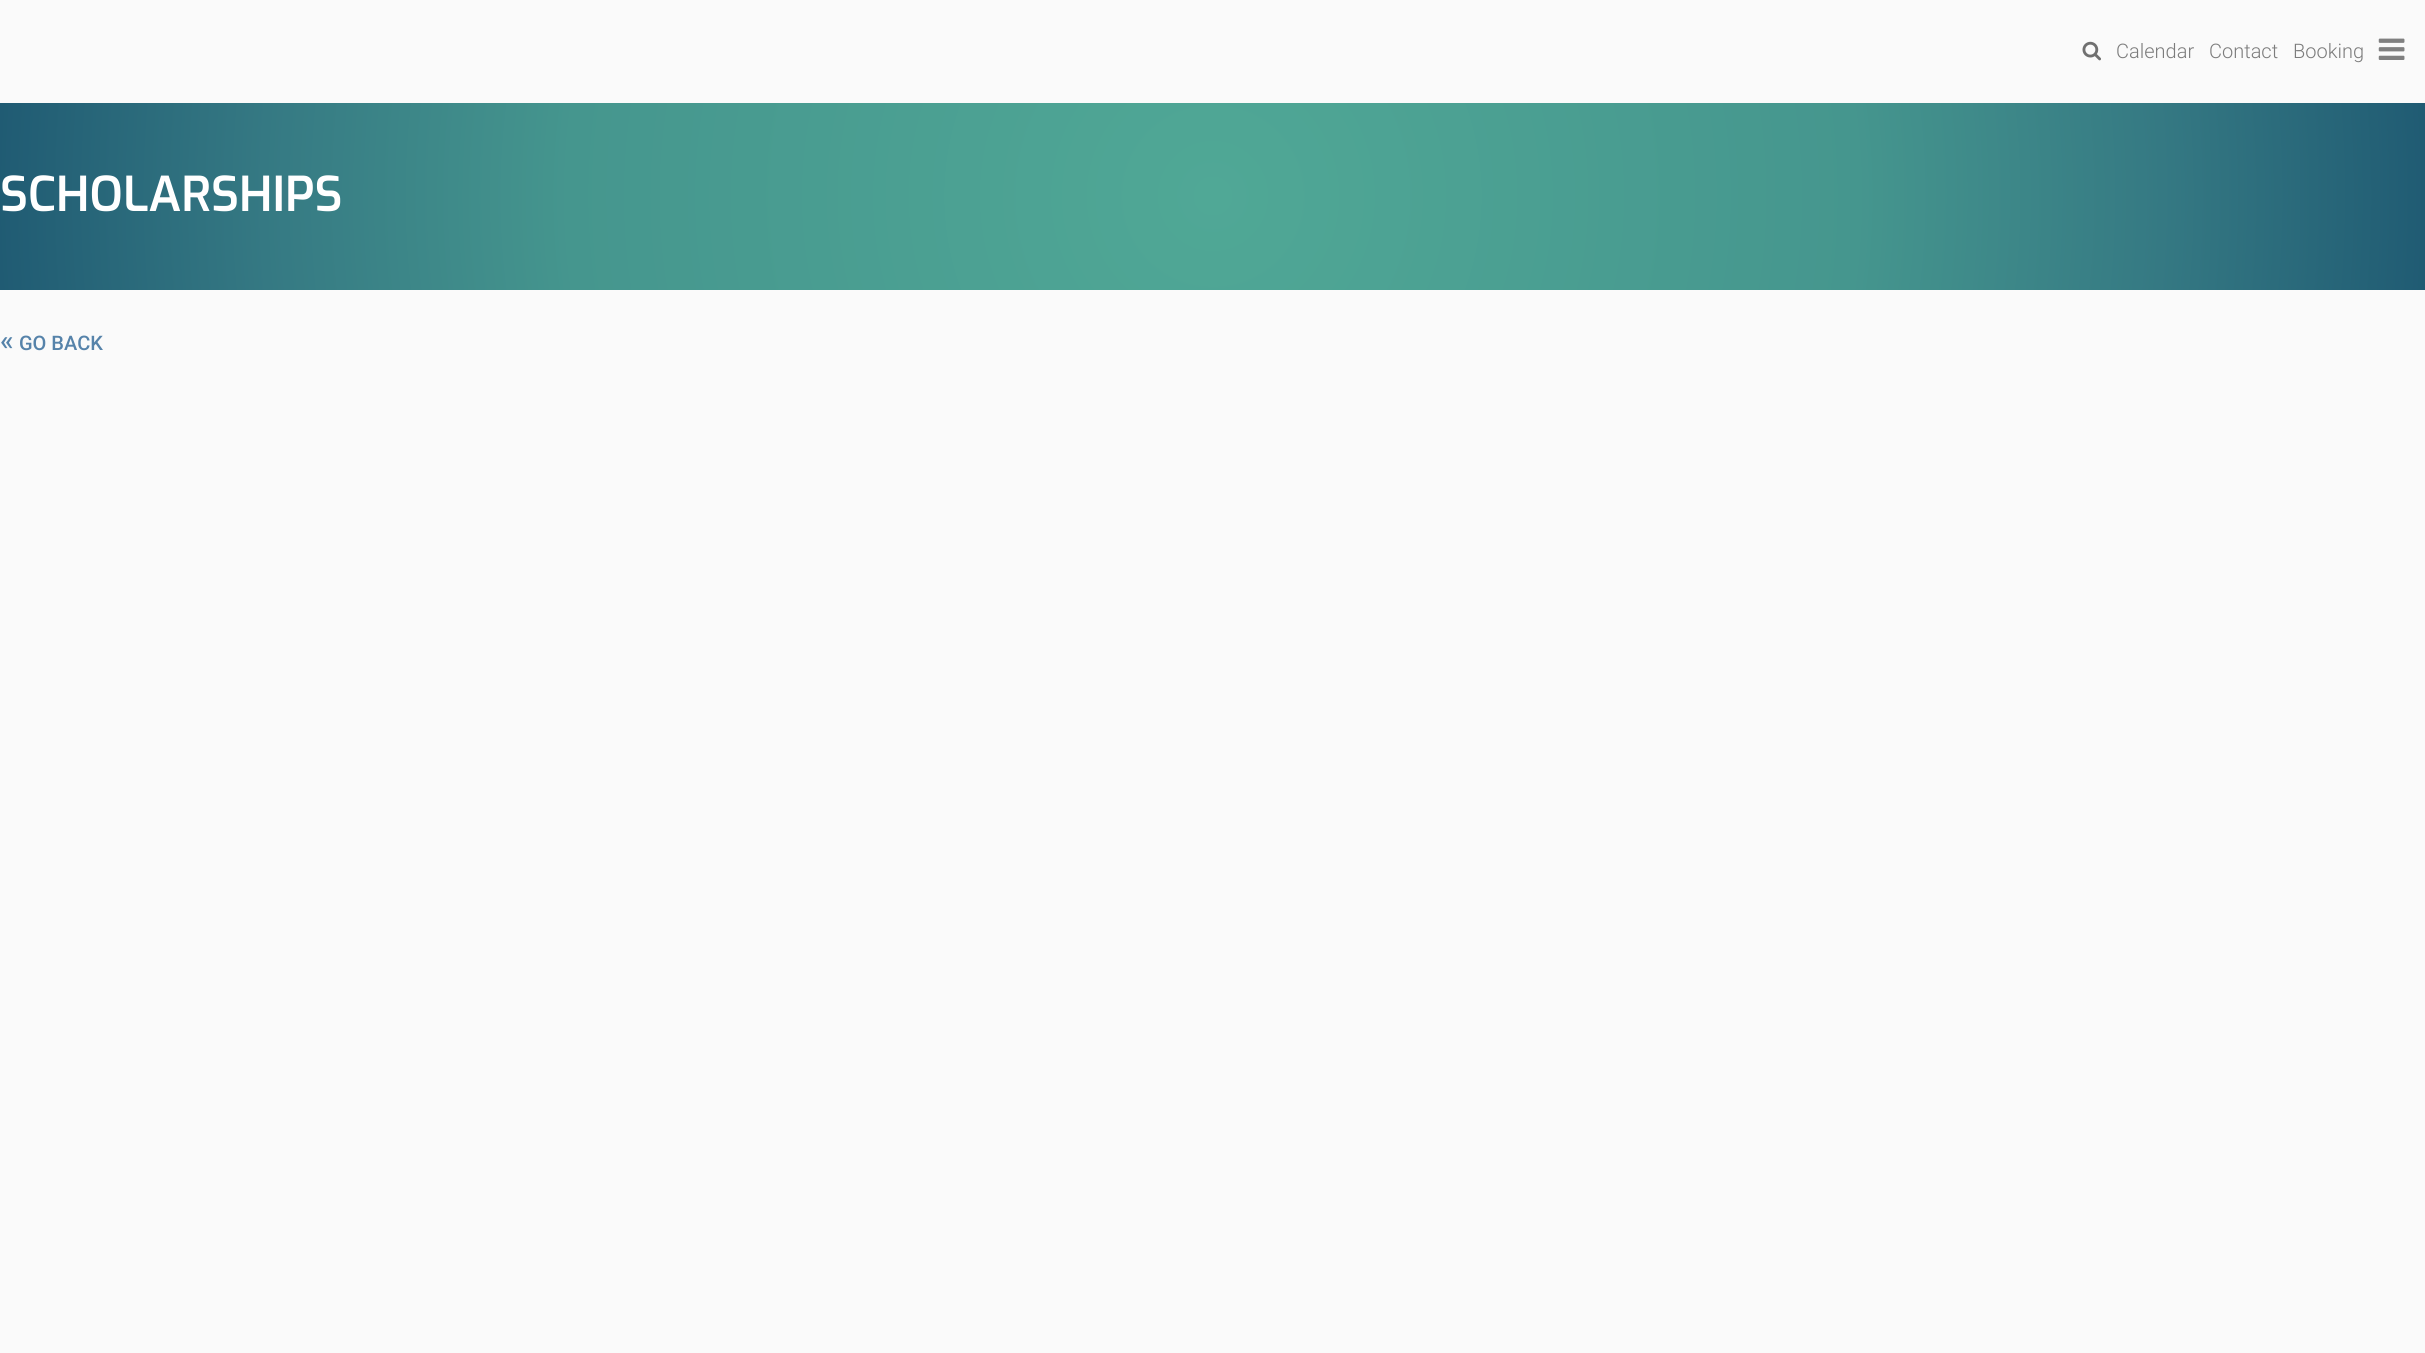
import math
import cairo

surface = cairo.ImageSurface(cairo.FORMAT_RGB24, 2425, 1353)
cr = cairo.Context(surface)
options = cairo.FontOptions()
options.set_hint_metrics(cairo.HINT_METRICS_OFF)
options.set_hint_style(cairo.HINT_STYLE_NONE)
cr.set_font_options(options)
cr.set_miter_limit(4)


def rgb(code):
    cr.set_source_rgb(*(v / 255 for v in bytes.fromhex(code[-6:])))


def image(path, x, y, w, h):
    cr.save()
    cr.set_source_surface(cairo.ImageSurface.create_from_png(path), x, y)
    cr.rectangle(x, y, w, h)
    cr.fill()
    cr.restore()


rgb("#fafafa")
cr.paint()
image("img/1.png", 2082, 41, 19, 20)
image("img/2.png", 2378, 38, 27, 22)
gradient = cairo.RadialGradient(1213, 196, 0, 1213, 196, 1216)
gradient.add_color_stop_rgba(0, 0.314, 0.659, 0.588, 1)
gradient.add_color_stop_rgba(0.53, 0.271, 0.588, 0.557, 1)
gradient.add_color_stop_rgba(0.78, 0.208, 0.475, 0.514, 1)
gradient.add_color_stop_rgba(1, 0.125, 0.357, 0.451, 1)
cr.set_source(gradient)
cr.rectangle(0, 103, 2425, 187)
cr.fill()
cr.select_font_face("Roboto Light")
cr.set_font_size(20)
rgb("#7c7c7c")
for x, y, s in [
    (2116, 58, "Calendar"),
    (2209, 58, "Contact"),
    (2293, 58, "Booking"),
]:
    cr.move_to(x, y)
    cr.show_text(s)
cr.select_font_face("Exo SemiBold")
cr.set_font_size(48)
rgb("#ffffff")
cr.move_to(0, 211)
cr.show_text("SCHOLARSHIPS")
cr.select_font_face("Roboto Medium")
cr.set_font_size(28)
rgb("#5683aa")
cr.move_to(0, 350)
cr.show_text("«")
cr.set_font_size(20)
cr.move_to(19, 350)
cr.show_text("GO BACK")
surface.write_to_png("page.png")
